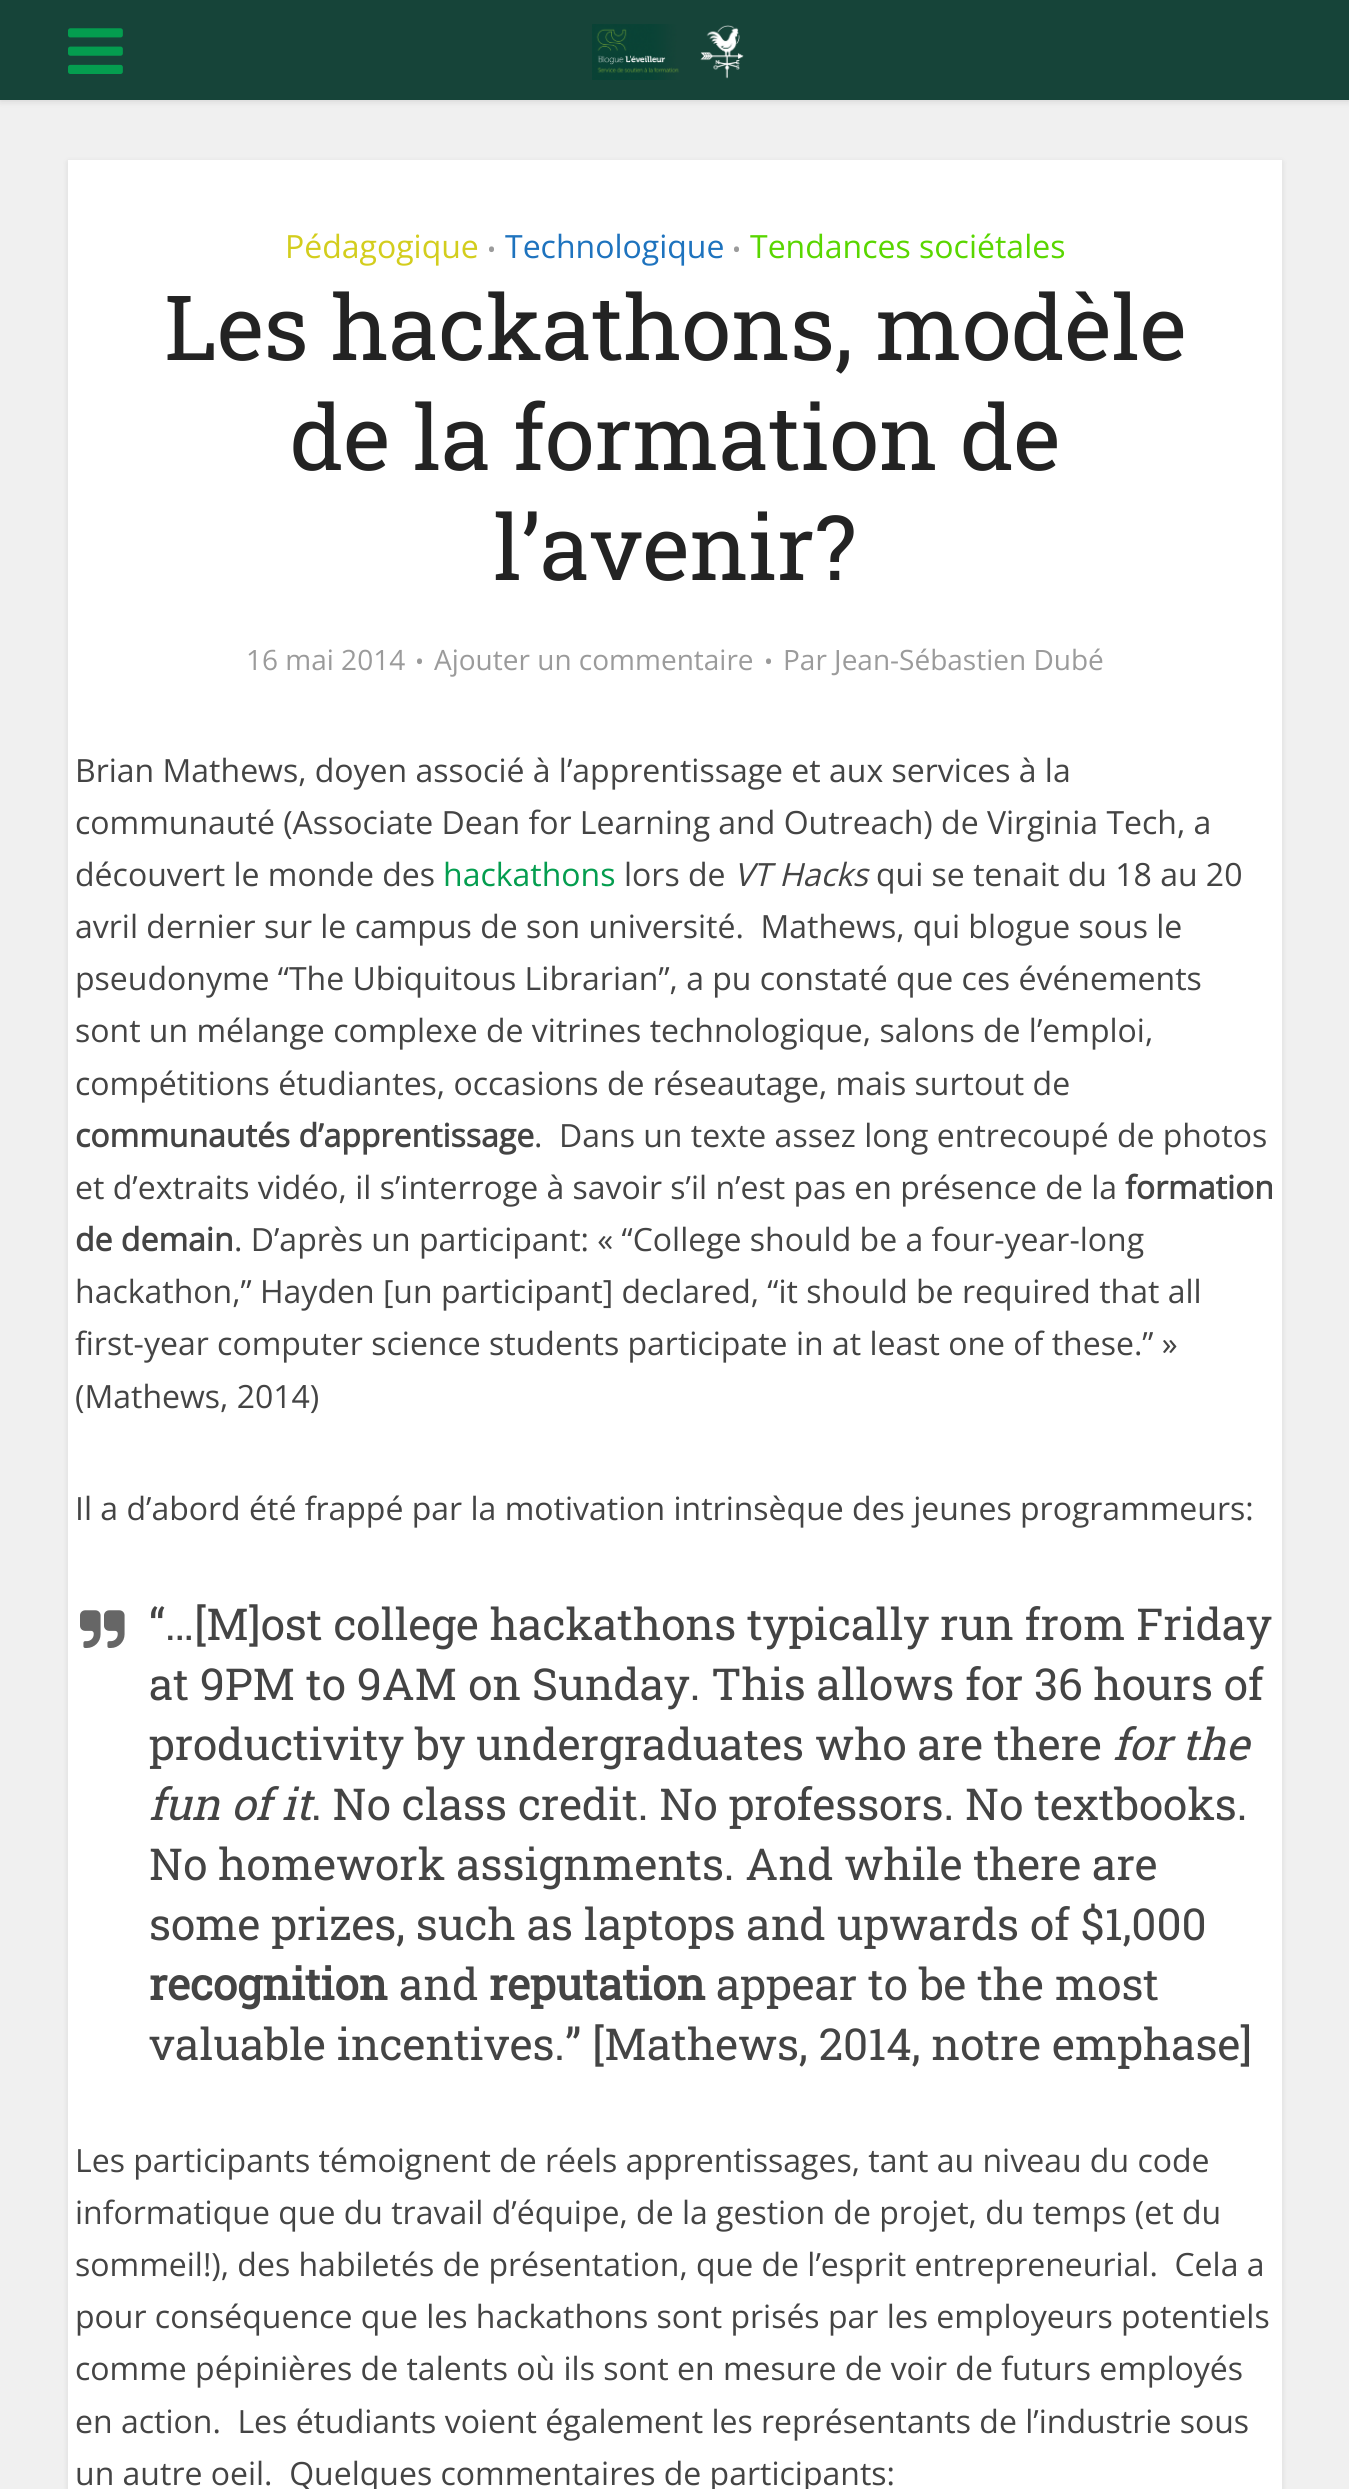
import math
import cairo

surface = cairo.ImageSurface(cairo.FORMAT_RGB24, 1349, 2489)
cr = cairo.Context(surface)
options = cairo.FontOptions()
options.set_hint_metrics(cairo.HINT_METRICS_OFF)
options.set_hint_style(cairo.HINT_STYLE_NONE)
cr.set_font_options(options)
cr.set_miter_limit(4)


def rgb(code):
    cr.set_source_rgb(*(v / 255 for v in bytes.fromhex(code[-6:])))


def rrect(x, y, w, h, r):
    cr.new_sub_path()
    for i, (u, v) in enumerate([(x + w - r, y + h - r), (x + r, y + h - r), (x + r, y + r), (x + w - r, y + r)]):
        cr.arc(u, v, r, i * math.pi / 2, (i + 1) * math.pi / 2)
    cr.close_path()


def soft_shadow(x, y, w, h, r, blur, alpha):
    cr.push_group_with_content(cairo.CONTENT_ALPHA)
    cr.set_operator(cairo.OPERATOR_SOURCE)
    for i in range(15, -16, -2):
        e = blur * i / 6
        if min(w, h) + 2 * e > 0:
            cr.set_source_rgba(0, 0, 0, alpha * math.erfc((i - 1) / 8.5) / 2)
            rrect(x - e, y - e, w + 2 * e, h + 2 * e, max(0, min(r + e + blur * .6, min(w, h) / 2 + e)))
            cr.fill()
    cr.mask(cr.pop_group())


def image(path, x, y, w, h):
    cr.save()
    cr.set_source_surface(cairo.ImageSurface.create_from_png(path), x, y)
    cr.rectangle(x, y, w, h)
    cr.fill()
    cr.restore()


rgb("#f0f0f0")
cr.paint()
rgb("#000000")
soft_shadow(0, 2, 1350, 100, 0, 3, 0.1)
rgb("#164439")
cr.rectangle(0, 0, 1349, 100)
cr.fill()
image("img/1.png", 68, 28, 55, 46)
image("img/2.png", 592, 24, 152, 56)
rgb("#000000")
soft_shadow(68, 162, 1214, 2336, 0, 3, 0.1)
rgb("#ffffff")
cr.rectangle(68, 160, 1214, 2329)
cr.fill()
image("img/3.png", 80, 1610, 45, 38)
cr.select_font_face("Open Sans")
cr.set_font_size(32)
rgb("#d3cd1d")
cr.move_to(285, 258)
cr.show_text("Pédagogique")
cr.set_font_size(24)
rgb("#9b9b9b")
cr.move_to(487, 258)
cr.show_text("•")
cr.set_font_size(32)
rgb("#1e73be")
cr.move_to(505, 258)
cr.show_text("Technologique")
cr.set_font_size(24)
rgb("#9b9b9b")
cr.move_to(732, 258)
cr.show_text("•")
cr.set_font_size(32)
rgb("#59d600")
cr.move_to(750, 258)
cr.show_text("Tendances sociétales")
cr.select_font_face("Roboto Slab")
cr.set_font_size(90)
rgb("#232323")
for x, y, s in [
    (164, 360, "Les hackathons, modèle"),
    (290, 470, "de la formation de"),
    (493, 580, "l’avenir?"),
]:
    cr.move_to(x, y)
    cr.show_text(s)
cr.select_font_face("Open Sans")
cr.set_font_size(28)
rgb("#9b9b9b")
cr.move_to(246, 670)
cr.show_text("16 mai 2014")
cr.set_font_size(24)
cr.move_to(415, 670)
cr.show_text("•")
cr.set_font_size(28)
cr.move_to(434, 670)
cr.show_text("Ajouter un commentaire")
cr.set_font_size(24)
cr.move_to(764, 670)
cr.show_text("•")
cr.set_font_size(28)
cr.move_to(783, 670)
cr.show_text("Par Jean-Sébastien Dubé")
cr.set_font_size(32)
rgb("#444444")
for x, y, s in [
    (75, 782, "Brian Mathews, doyen associé à l’apprentissage et aux services à la"),
    (75, 834, "communauté (Associate Dean for Learning and Outreach) de Virginia Tech, a"),
    (75, 886, "découvert le monde des"),
]:
    cr.move_to(x, y)
    cr.show_text(s)
rgb("#049d4f")
cr.move_to(443, 886)
cr.show_text("hackathons")
rgb("#444444")
cr.move_to(624, 886)
cr.show_text("lors de")
cr.select_font_face("Open Sans", cairo.FONT_SLANT_ITALIC)
cr.move_to(734, 886)
cr.show_text("VT Hacks")
cr.select_font_face("Open Sans")
for x, y, s in [
    (876, 886, "qui se tenait du 18 au 20"),
    (75, 938, "avril dernier sur le campus de son université.  Mathews, qui blogue sous le"),
    (75, 990, "pseudonyme “The Ubiquitous Librarian”, a pu constaté que ces événements"),
    (75, 1042, "sont un mélange complexe de vitrines technologique, salons de l’emploi,"),
    (75, 1095, "compétitions étudiantes, occasions de réseautage, mais surtout de"),
]:
    cr.move_to(x, y)
    cr.show_text(s)
cr.select_font_face("Open Sans", cairo.FONT_SLANT_NORMAL, cairo.FONT_WEIGHT_BOLD)
cr.move_to(75, 1147)
cr.show_text("communautés d’apprentissage")
cr.select_font_face("Open Sans")
cr.move_to(534, 1147)
cr.show_text(".  Dans un texte assez long entrecoupé de photos")
cr.move_to(75, 1199)
cr.show_text("et d’extraits vidéo, il s’interroge à savoir s’il n’est pas en présence de la")
cr.select_font_face("Open Sans", cairo.FONT_SLANT_NORMAL, cairo.FONT_WEIGHT_BOLD)
cr.move_to(1125, 1199)
cr.show_text("formation")
cr.move_to(75, 1251)
cr.show_text("de demain")
cr.select_font_face("Open Sans")
for x, y, s in [
    (234, 1251, ". D’après un participant: « “College should be a four-year-long"),
    (75, 1303, "hackathon,” Hayden [un participant] declared, “it should be required that all"),
    (75, 1355, "first-year computer science students participate in at least one of these.” »"),
    (75, 1408, "(Mathews, 2014)"),
    (75, 1520, "Il a d’abord été frappé par la motivation intrinsèque des jeunes programmeurs:"),
]:
    cr.move_to(x, y)
    cr.show_text(s)
cr.select_font_face("Roboto Slab")
cr.set_font_size(44)
for x, y, s in [
    (149, 1640, "“…[M]ost college hackathons typically run from Friday"),
    (149, 1700, "at 9PM to 9AM on Sunday. This allows for 36 hours of"),
    (149, 1760, "productivity by undergraduates who are there"),
]:
    cr.move_to(x, y)
    cr.show_text(s)
cr.select_font_face("Roboto Slab", cairo.FONT_SLANT_ITALIC)
cr.move_to(1113, 1760)
cr.show_text("for the")
cr.move_to(149, 1820)
cr.show_text("fun of it")
cr.select_font_face("Roboto Slab")
for x, y, s in [
    (311, 1820, ". No class credit. No professors. No textbooks."),
    (149, 1880, "No homework assignments. And while there are"),
    (149, 1940, "some prizes, such as laptops and upwards of $1,000"),
]:
    cr.move_to(x, y)
    cr.show_text(s)
cr.select_font_face("Roboto Slab", cairo.FONT_SLANT_NORMAL, cairo.FONT_WEIGHT_BOLD)
cr.move_to(149, 2000)
cr.show_text("recognition")
cr.select_font_face("Roboto Slab")
cr.move_to(399, 2000)
cr.show_text("and")
cr.select_font_face("Roboto Slab", cairo.FONT_SLANT_NORMAL, cairo.FONT_WEIGHT_BOLD)
cr.move_to(489, 2000)
cr.show_text("reputation")
cr.select_font_face("Roboto Slab")
cr.move_to(716, 2000)
cr.show_text("appear to be the most")
cr.move_to(149, 2060)
cr.show_text("valuable incentives.” [Mathews, 2014, notre emphase]")
cr.select_font_face("Open Sans")
cr.set_font_size(32)
for x, y, s in [
    (75, 2172, "Les participants témoignent de réels apprentissages, tant au niveau du code"),
    (75, 2224, "informatique que du travail d’équipe, de la gestion de projet, du temps (et du"),
    (75, 2276, "sommeil!), des habiletés de présentation, que de l’esprit entrepreneurial.  Cela a"),
    (75, 2328, "pour conséquence que les hackathons sont prisés par les employeurs potentiels"),
    (75, 2380, "comme pépinières de talents où ils sont en mesure de voir de futurs employés"),
    (75, 2433, "en action.  Les étudiants voient également les représentants de l’industrie sous"),
    (75, 2485, "un autre oeil.  Quelques commentaires de participants:"),
]:
    cr.move_to(x, y)
    cr.show_text(s)
surface.write_to_png("page.png")
